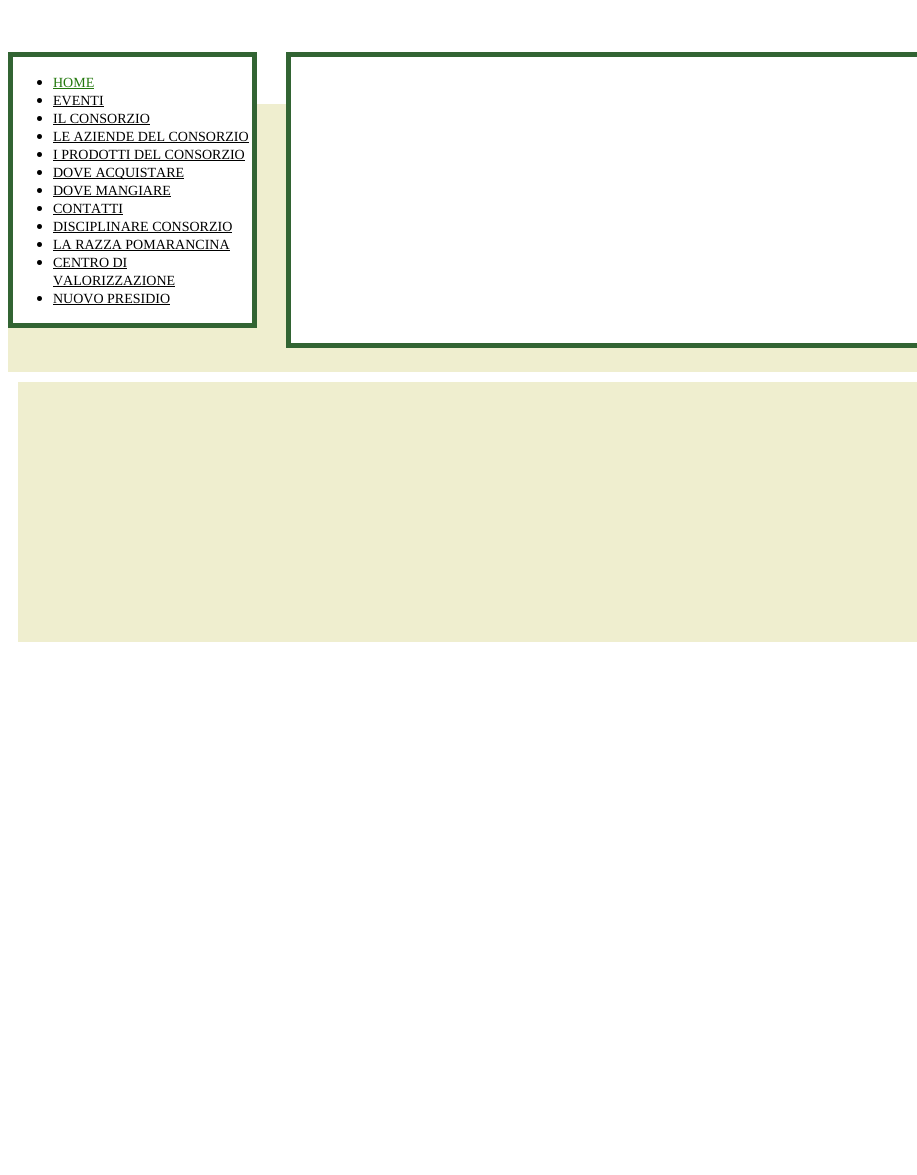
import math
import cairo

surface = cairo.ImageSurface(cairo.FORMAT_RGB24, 917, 1175)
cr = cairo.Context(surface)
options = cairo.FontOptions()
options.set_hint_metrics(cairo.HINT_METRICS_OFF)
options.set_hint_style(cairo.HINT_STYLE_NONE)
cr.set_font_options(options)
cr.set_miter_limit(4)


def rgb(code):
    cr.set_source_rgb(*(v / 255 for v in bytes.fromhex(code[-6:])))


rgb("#ffffff")
cr.paint()
rgb("#efeecf")
cr.rectangle(8, 104, 909, 268)
cr.fill()
rgb("#ffffff")
cr.rectangle(13, 104, 239, 219)
cr.fill()
cr.rectangle(10.5, 54.5, 244, 271)
rgb("#326433")
cr.set_line_width(5)
cr.stroke()
rgb("#000000")
cr.arc(39.5, 82.5, 2.5, 0, 2 * math.pi)
cr.fill()
rgb("#23780d")
cr.rectangle(53, 88, 41, 1)
cr.fill()
rgb("#000000")
cr.arc(39.5, 100.5, 2.5, 0, 2 * math.pi)
cr.fill()
cr.rectangle(53, 106, 51, 1)
cr.fill()
cr.arc(39.5, 118.5, 2.5, 0, 2 * math.pi)
cr.fill()
cr.rectangle(53, 124, 97, 1)
cr.fill()
cr.arc(39.5, 136.5, 2.5, 0, 2 * math.pi)
cr.fill()
cr.rectangle(53, 142, 196, 1)
cr.fill()
cr.arc(39.5, 154.5, 2.5, 0, 2 * math.pi)
cr.fill()
cr.rectangle(53, 160, 192, 1)
cr.fill()
cr.arc(39.5, 172.5, 2.5, 0, 2 * math.pi)
cr.fill()
cr.rectangle(53, 178, 131, 1)
cr.fill()
cr.arc(39.5, 190.5, 2.5, 0, 2 * math.pi)
cr.fill()
cr.rectangle(53, 196, 118, 1)
cr.fill()
cr.arc(39.5, 208.5, 2.5, 0, 2 * math.pi)
cr.fill()
cr.rectangle(53, 214, 70, 1)
cr.fill()
cr.arc(39.5, 226.5, 2.5, 0, 2 * math.pi)
cr.fill()
cr.rectangle(53, 232, 179, 1)
cr.fill()
cr.arc(39.5, 244.5, 2.5, 0, 2 * math.pi)
cr.fill()
cr.rectangle(53, 250, 177, 1)
cr.fill()
cr.arc(39.5, 262.5, 2.5, 0, 2 * math.pi)
cr.fill()
cr.rectangle(53, 268, 74, 1)
cr.fill()
cr.rectangle(53, 286, 122, 1)
cr.fill()
cr.arc(39.5, 298.5, 2.5, 0, 2 * math.pi)
cr.fill()
cr.rectangle(53, 304, 117, 1)
cr.fill()
rgb("#ffffff")
cr.rectangle(291, 104, 626, 239)
cr.fill()
cr.rectangle(288.5, 54.5, 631, 291)
rgb("#326433")
cr.stroke()
rgb("#efeecf")
cr.rectangle(18, 382, 899, 260)
cr.fill()
cr.select_font_face("Liberation Serif")
cr.set_font_size(14)
rgb("#23780d")
cr.move_to(53, 87)
cr.show_text("HOME")
rgb("#000000")
for x, y, s in [
    (53, 105, "EVENTI"),
    (53, 123, "IL CONSORZIO"),
    (53, 141, "LE AZIENDE DEL CONSORZIO"),
    (53, 159, "I PRODOTTI DEL CONSORZIO"),
    (53, 177, "DOVE ACQUISTARE"),
    (53, 195, "DOVE MANGIARE"),
    (53, 213, "CONTATTI"),
    (53, 231, "DISCIPLINARE CONSORZIO"),
    (53, 249, "LA RAZZA POMARANCINA"),
    (53, 267, "CENTRO DI"),
    (53, 285, "VALORIZZAZIONE"),
    (53, 303, "NUOVO PRESIDIO"),
]:
    cr.move_to(x, y)
    cr.show_text(s)
surface.write_to_png("page.png")
